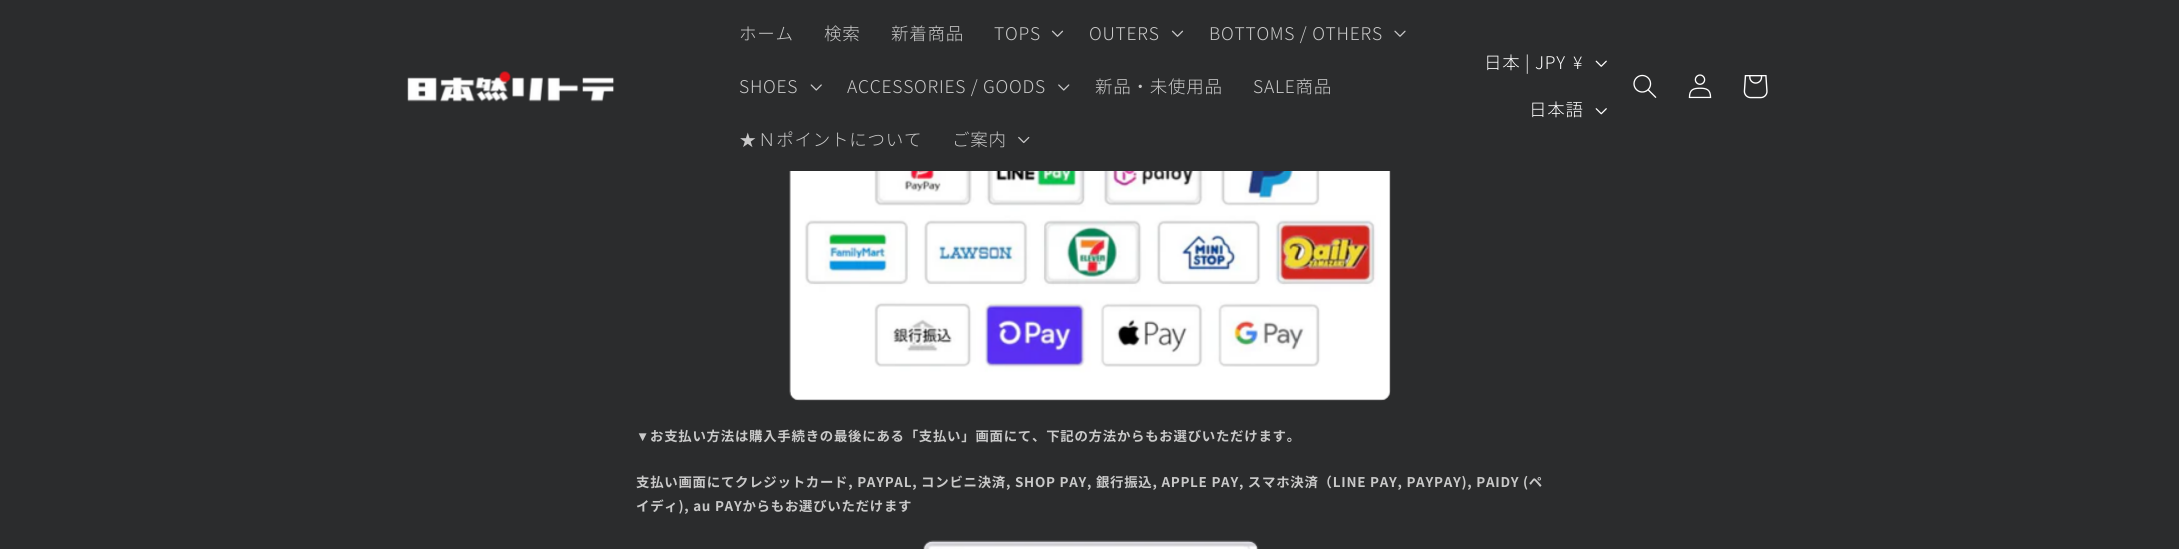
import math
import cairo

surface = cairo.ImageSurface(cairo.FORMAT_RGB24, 2179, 549)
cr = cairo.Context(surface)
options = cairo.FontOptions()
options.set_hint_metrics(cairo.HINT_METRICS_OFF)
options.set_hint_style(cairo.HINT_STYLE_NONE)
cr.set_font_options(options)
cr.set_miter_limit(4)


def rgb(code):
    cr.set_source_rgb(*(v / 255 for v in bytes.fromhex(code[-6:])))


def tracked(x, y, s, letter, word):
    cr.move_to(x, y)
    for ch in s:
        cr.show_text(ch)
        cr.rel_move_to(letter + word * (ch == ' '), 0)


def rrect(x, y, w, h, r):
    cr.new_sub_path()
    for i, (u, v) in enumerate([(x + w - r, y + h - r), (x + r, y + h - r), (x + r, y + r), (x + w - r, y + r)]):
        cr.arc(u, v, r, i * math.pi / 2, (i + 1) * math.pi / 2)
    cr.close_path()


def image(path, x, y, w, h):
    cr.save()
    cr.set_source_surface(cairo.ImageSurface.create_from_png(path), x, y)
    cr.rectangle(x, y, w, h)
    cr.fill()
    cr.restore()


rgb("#2b2c2d")
cr.paint()
rrect(789.5, 30.5, 601, 370, 9.5)
rgb("#363637")
cr.set_line_width(1)
cr.stroke()
rgb("#2b2c2d")
cr.rectangle(789, 30, 602, 141)
cr.fill()
image("img/1.png", 407, 71, 208, 31)
image("img/2.png", 1051, 30, 13, 7)
image("img/2.png", 1171, 30, 13, 7)
image("img/3.png", 1394, 30, 12, 7)
image("img/4.png", 810, 84, 12, 7)
image("img/5.png", 1058, 84, 12, 7)
image("img/6.png", 1018, 136, 12, 8)
image("img/7.png", 1595, 60, 12, 7)
image("img/8.png", 1595, 108, 12, 7)
image("img/9.png", 1633, 74, 24, 24)
image("img/10.png", 1688, 74, 24, 25)
image("img/11.png", 1743, 75, 25, 24)
image("img/12.png", 789, 171, 602, 230)
rrect(923.5, 540.5, 335, 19, 9.5)
rgb("#363637")
cr.stroke()
image("img/13.png", 923, 540, 335, 9)
cr.select_font_face("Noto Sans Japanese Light")
cr.set_font_size(17.5)
rgb("#c9c9c9")
for x, y, s in [
    (739, 40, "ホーム"),
    (824, 40, "検索"),
    (891, 40, "新着商品"),
    (994, 40, "TOPS"),
    (1089, 40, "OUTERS"),
    (1209, 40, "BOTTOMS / OTHERS"),
    (739, 93, "SHOES"),
    (847, 93, "ACCESSORIES / GOODS"),
    (1095, 93, "新品・未使用品"),
    (1253, 93, "SALE商品"),
]:
    tracked(x, y, s, 0.75, 0)
cr.select_font_face("WenQuanYi Zen Hei Medium")
tracked(739, 146, "★", 0.75, 0)
cr.select_font_face("Noto Sans Japanese Light")
tracked(758, 146, "Ｎポイントについて", 0.75, 0)
tracked(952, 146, "ご案内", 0.75, 0)
rgb("#ffffff")
for x, y, s in [
    (1484, 69, "日本 |"),
    (1535, 69, "JPY"),
    (1573, 69, "¥"),
    (1529, 116, "日本語"),
]:
    tracked(x, y, s, 0.75, 0)
cr.select_font_face("Liberation Sans", cairo.FONT_SLANT_NORMAL, cairo.FONT_WEIGHT_BOLD)
cr.set_font_size(13.4)
rgb("#c9c9c9")
tracked(636, 441, "▼", 0.75, 0)
cr.select_font_face("Noto Sans Japanese", cairo.FONT_SLANT_NORMAL, cairo.FONT_WEIGHT_BOLD)
for x, y, s in [
    (650, 441, "お支払い方法は購入手続きの最後にある「支払い」画面にて、下記の方法からもお選びいただけます。"),
    (636, 487, "支払い画面にてクレジットカード, PAYPAL, コンビニ決済, SHOP PAY, 銀行振込, APPLE PAY, スマホ決済（LINE PAY, PAYPAY), PAIDY (ペ"),
    (636, 511, "イディ), au PAYからもお選びいただけます"),
]:
    tracked(x, y, s, 0.75, 0)
surface.write_to_png("page.png")
